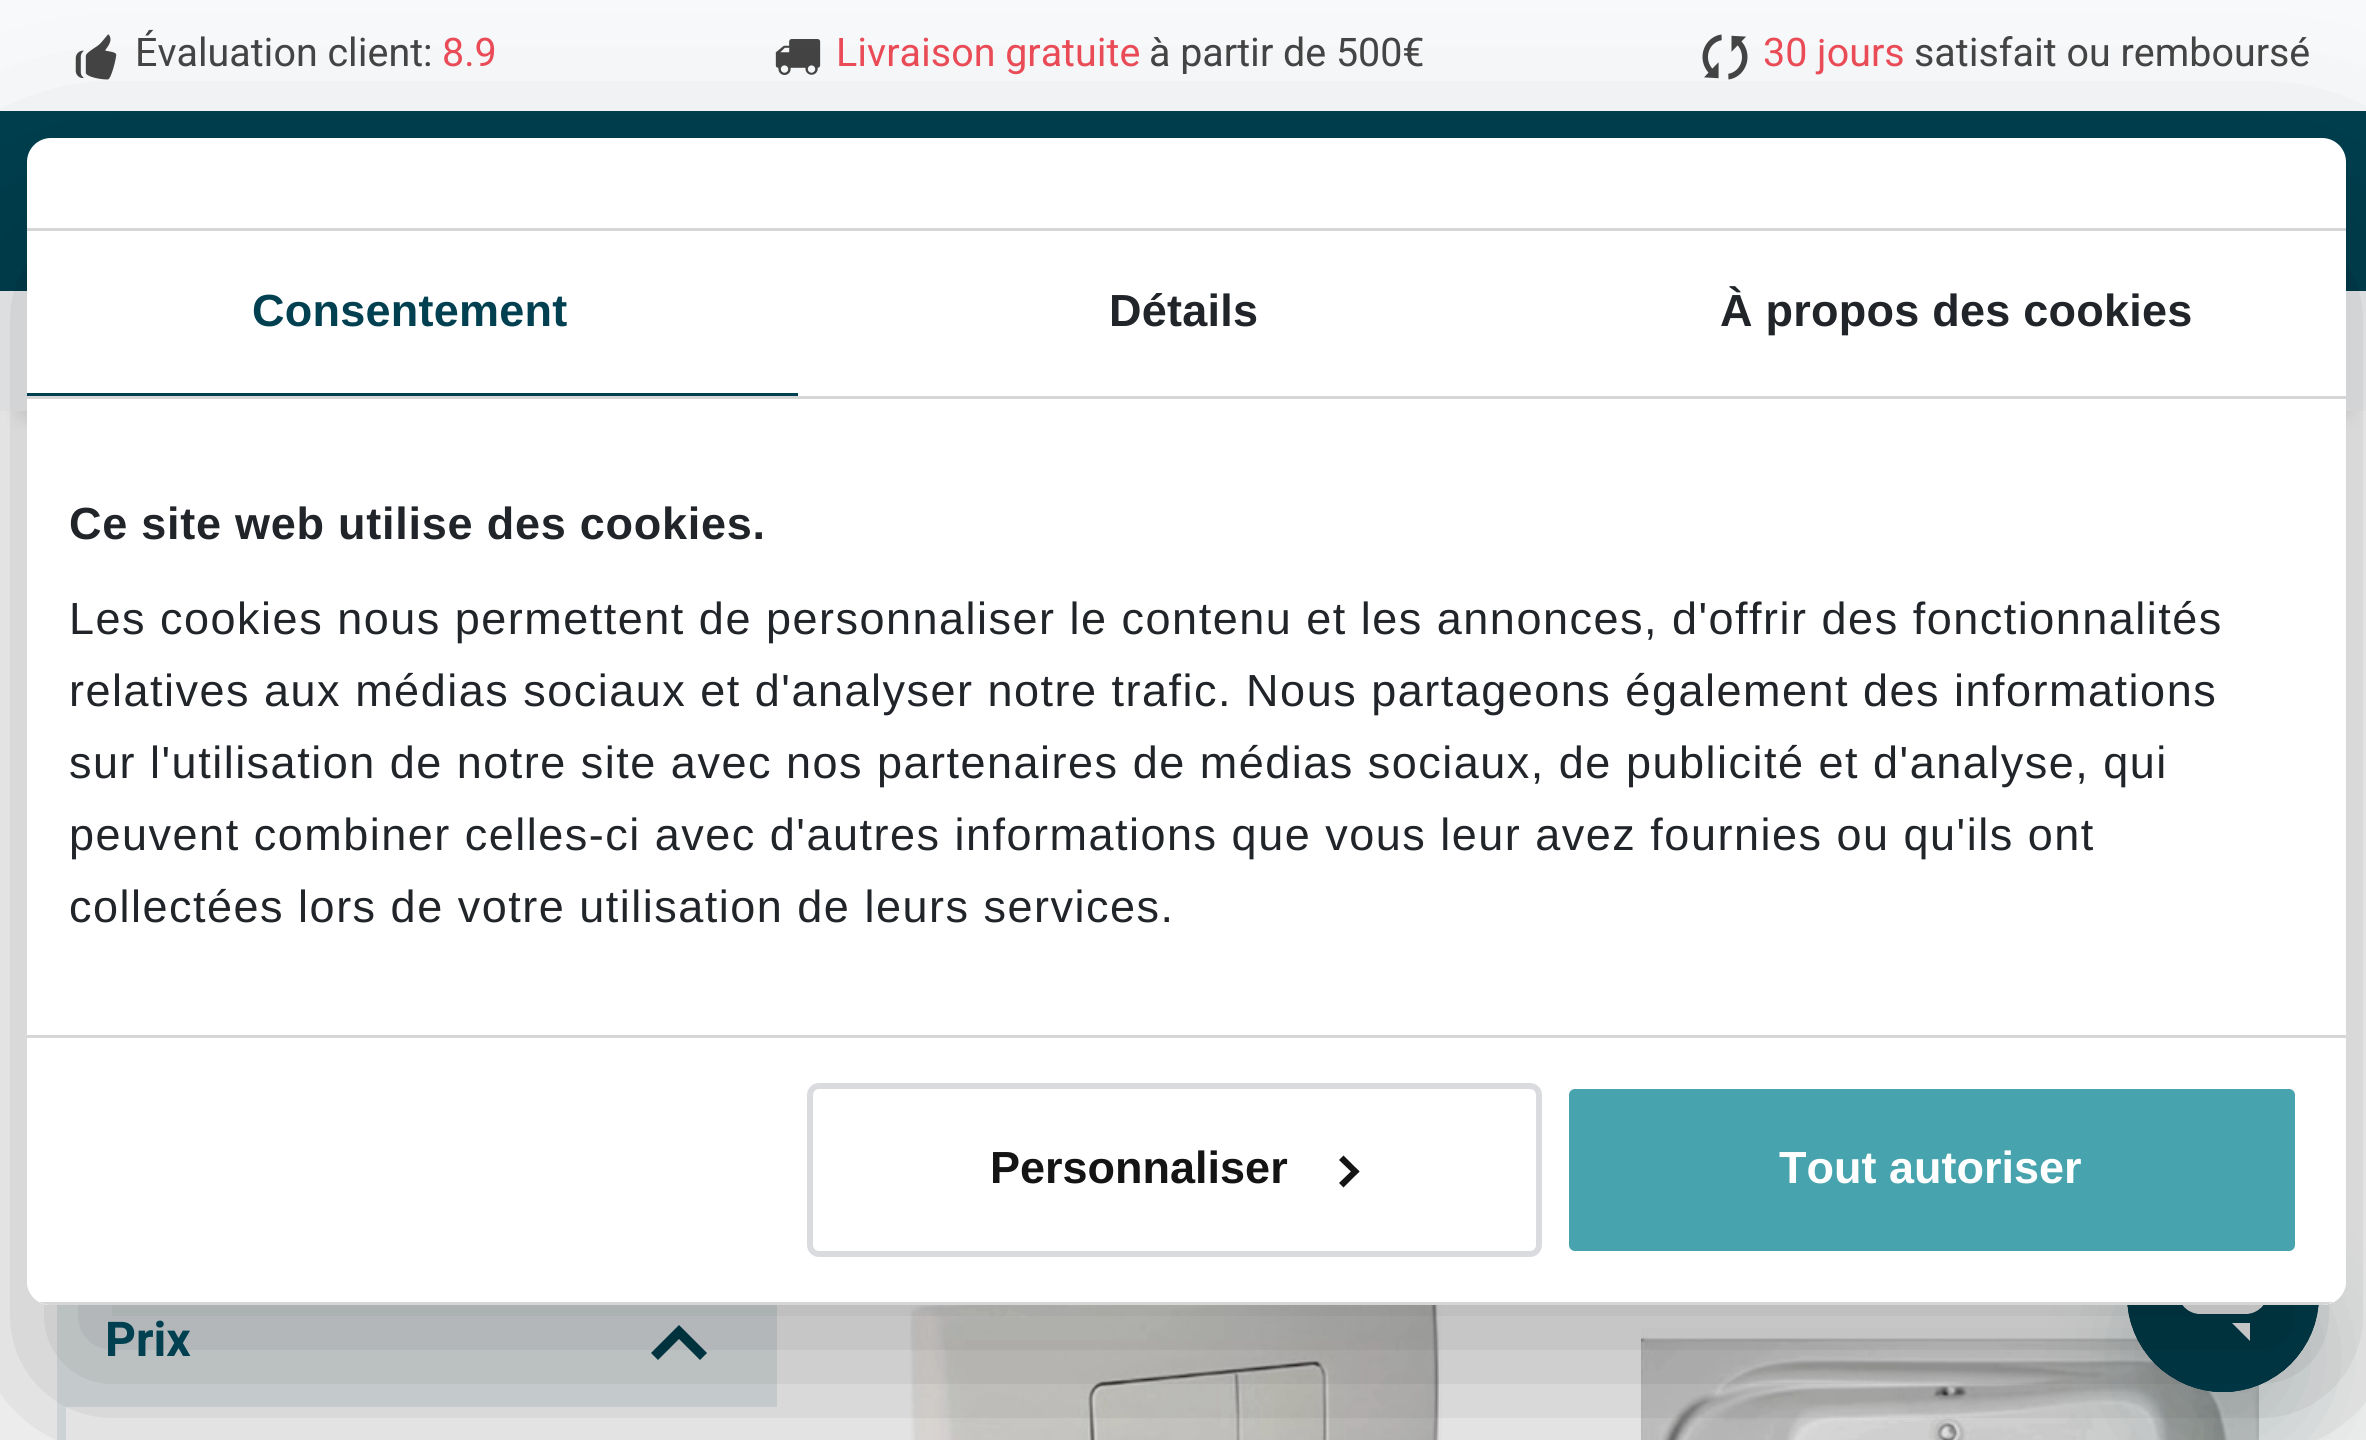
import math
import cairo

surface = cairo.ImageSurface(cairo.FORMAT_RGB24, 2366, 1440)
cr = cairo.Context(surface)
options = cairo.FontOptions()
options.set_hint_metrics(cairo.HINT_METRICS_OFF)
options.set_hint_style(cairo.HINT_STYLE_NONE)
cr.set_font_options(options)
cr.set_miter_limit(4)


def rgb(code):
    cr.set_source_rgb(*(v / 255 for v in bytes.fromhex(code[-6:])))


def tracked(x, y, s, letter, word):
    cr.move_to(x, y)
    for ch in s:
        cr.show_text(ch)
        cr.rel_move_to(letter + word * (ch == ' '), 0)


def rrect(x, y, w, h, r):
    cr.new_sub_path()
    for i, (u, v) in enumerate([(x + w - r, y + h - r), (x + r, y + h - r), (x + r, y + r), (x + w - r, y + r)]):
        cr.arc(u, v, r, i * math.pi / 2, (i + 1) * math.pi / 2)
    cr.close_path()


def soft_shadow(x, y, w, h, r, blur, alpha):
    cr.push_group_with_content(cairo.CONTENT_ALPHA)
    cr.set_operator(cairo.OPERATOR_SOURCE)
    for i in range(15, -16, -2):
        e = blur * i / 6
        if min(w, h) + 2 * e > 0:
            cr.set_source_rgba(0, 0, 0, alpha * math.erfc((i - 1) / 8.5) / 2)
            rrect(x - e, y - e, w + 2 * e, h + 2 * e, max(0, min(r + e + blur * .6, min(w, h) / 2 + e)))
            cr.fill()
    cr.mask(cr.pop_group())


def image(path, x, y, w, h):
    cr.save()
    cr.set_source_surface(cairo.ImageSurface.create_from_png(path), x, y)
    cr.rectangle(x, y, w, h)
    cr.fill()
    cr.restore()


rgb("#ffffff")
cr.paint()
rgb("#f8f9fa")
cr.rectangle(0, 0, 2366, 411)
cr.fill()
image("img/1.png", 75, 34, 42, 46)
image("img/2.png", 775, 39, 46, 36)
image("img/3.png", 1702, 34, 46, 46)
rgb("#004050")
cr.rectangle(0, 111, 2366, 180)
cr.fill()
cr.save()
cr.rectangle(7, 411, 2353, 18)
cr.clip()
rgb("#a2a2a2")
soft_shadow(24, 339, 2319, 72, 0, 12, 0.5)
cr.restore()
rgb("#e6ecee")
cr.rectangle(57, 1305, 720, 102)
cr.fill()
rgb("#004050")
cr.new_path()
cr.move_to(679, 1325)
cr.line_to(707, 1353)
cr.line_to(700, 1360)
cr.line_to(679, 1339)
cr.line_to(658, 1360)
cr.line_to(651, 1353)
cr.close_path()
cr.fill()
rgb("#e6ecee")
cr.rectangle(57, 1407, 9, 33)
cr.fill()
image("img/4.png", 910, 1305, 532, 135)
image("img/5.png", 1641, 1328, 618, 112)
rgb("#17494d")
soft_shadow(2127, 1260, 192, 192, 96, 45, 0.15)
image("img/6.png", 2127, 1305, 192, 87)
cr.save()
cr.set_fill_rule(cairo.FILL_RULE_EVEN_ODD)
cr.new_path()
cr.move_to(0, 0)
cr.line_to(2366, 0)
cr.line_to(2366, 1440)
cr.line_to(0, 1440)
cr.close_path()
cr.move_to(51, 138)
cr.line_to(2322, 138)
cr.curve_to(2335.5, 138, 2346, 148.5, 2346, 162)
cr.line_to(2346, 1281)
cr.curve_to(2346, 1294.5, 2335.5, 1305, 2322, 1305)
cr.line_to(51, 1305)
cr.curve_to(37.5, 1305, 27, 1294.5, 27, 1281)
cr.line_to(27, 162)
cr.curve_to(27, 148.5, 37.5, 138, 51, 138)
cr.close_path()
cr.clip()
rgb("#000000")
soft_shadow(27, 234, 2319, 1167, 24, 102, 0.3)
cr.restore()
rgb("#ffffff")
rrect(27, 138, 2319, 1167, 24)
cr.fill()
for x, y, w, h, color in [
    (27, 228, 2319, 3, "#d6d6d6"),
    (27, 396, 2319, 3, "#d6d6d6"),
    (27, 393, 771, 3, "#004050"),
    (27, 1035, 2319, 3, "#d6d6d6"),
]:
    rgb(color)
    cr.rectangle(x, y, w, h)
    cr.fill()
cr.save()
rrect(27, 138, 2319, 1167, 24)
cr.clip()
cr.rectangle(39, 1302, 2295, 3)
cr.fill()
cr.restore()
rrect(810, 1086, 729, 168, 9)
rgb("#dadbde")
cr.set_line_width(6)
cr.stroke()
rgb("#141414")
cr.new_path()
cr.move_to(1343.5, 1155.5)
cr.line_to(1359.5, 1171.5)
cr.line_to(1355, 1175.5)
cr.line_to(1339, 1160)
cr.close_path()
cr.fill()
cr.new_path()
cr.move_to(1355, 1167.5)
cr.line_to(1359.5, 1171.5)
cr.line_to(1343.5, 1187.5)
cr.line_to(1339, 1183)
cr.close_path()
cr.fill()
rgb("#47a3ad")
rrect(1566, 1086, 732, 168, 9)
cr.fill_preserve()
rgb("#ffffff")
cr.stroke()
cr.select_font_face("Heebo")
cr.set_font_size(39.4)
rgb("#444444")
cr.move_to(135, 66)
cr.show_text("Évaluation client:")
rgb("#e94b57")
cr.move_to(442, 66)
cr.show_text("8.9")
cr.move_to(836, 66)
cr.show_text("Livraison gratuite")
rgb("#444444")
cr.move_to(1149, 66)
cr.show_text("à partir de 500€")
rgb("#e94b57")
cr.move_to(1763, 66)
cr.show_text("30 jours")
rgb("#444444")
cr.move_to(1914, 66)
cr.show_text("satisfait ou remboursé")
cr.select_font_face("Liberation Sans", cairo.FONT_SLANT_NORMAL, cairo.FONT_WEIGHT_BOLD)
cr.set_font_size(45)
rgb("#004050")
tracked(252, 326, "Consentement", 0.25, 0)
rgb("#212529")
tracked(1109, 326, "Détails", 0.25, 0)
tracked(1720, 326, "À propos des cookies", 0.25, 0)
tracked(69, 539, "Ce site web utilise des cookies.", 0.75, 0)
cr.select_font_face("Liberation Sans")
for x, y, s in [
    (69, 634, "Les cookies nous permettent de personnaliser le contenu et les annonces, d'offrir des fonctionnalités"),
    (69, 706, "relatives aux médias sociaux et d'analyser notre trafic. Nous partageons également des informations"),
    (69, 778, "sur l'utilisation de notre site avec nos partenaires de médias sociaux, de publicité et d'analyse, qui"),
    (69, 850, "peuvent combiner celles-ci avec d'autres informations que vous leur avez fournies ou qu'ils ont"),
    (69, 922, "collectées lors de votre utilisation de leurs services."),
]:
    tracked(x, y, s, 1.5, 0)
cr.select_font_face("Liberation Sans", cairo.FONT_SLANT_NORMAL, cairo.FONT_WEIGHT_BOLD)
rgb("#141414")
cr.move_to(990, 1183)
cr.show_text("Personnaliser")
rgb("#ffffff")
cr.move_to(1779, 1183)
cr.show_text("Tout autoriser")
cr.select_font_face("Heebo", cairo.FONT_SLANT_NORMAL, cairo.FONT_WEIGHT_BOLD)
cr.set_font_size(48)
rgb("#004050")
cr.move_to(105, 1356)
cr.show_text("Prix")
surface.write_to_png("page.png")
